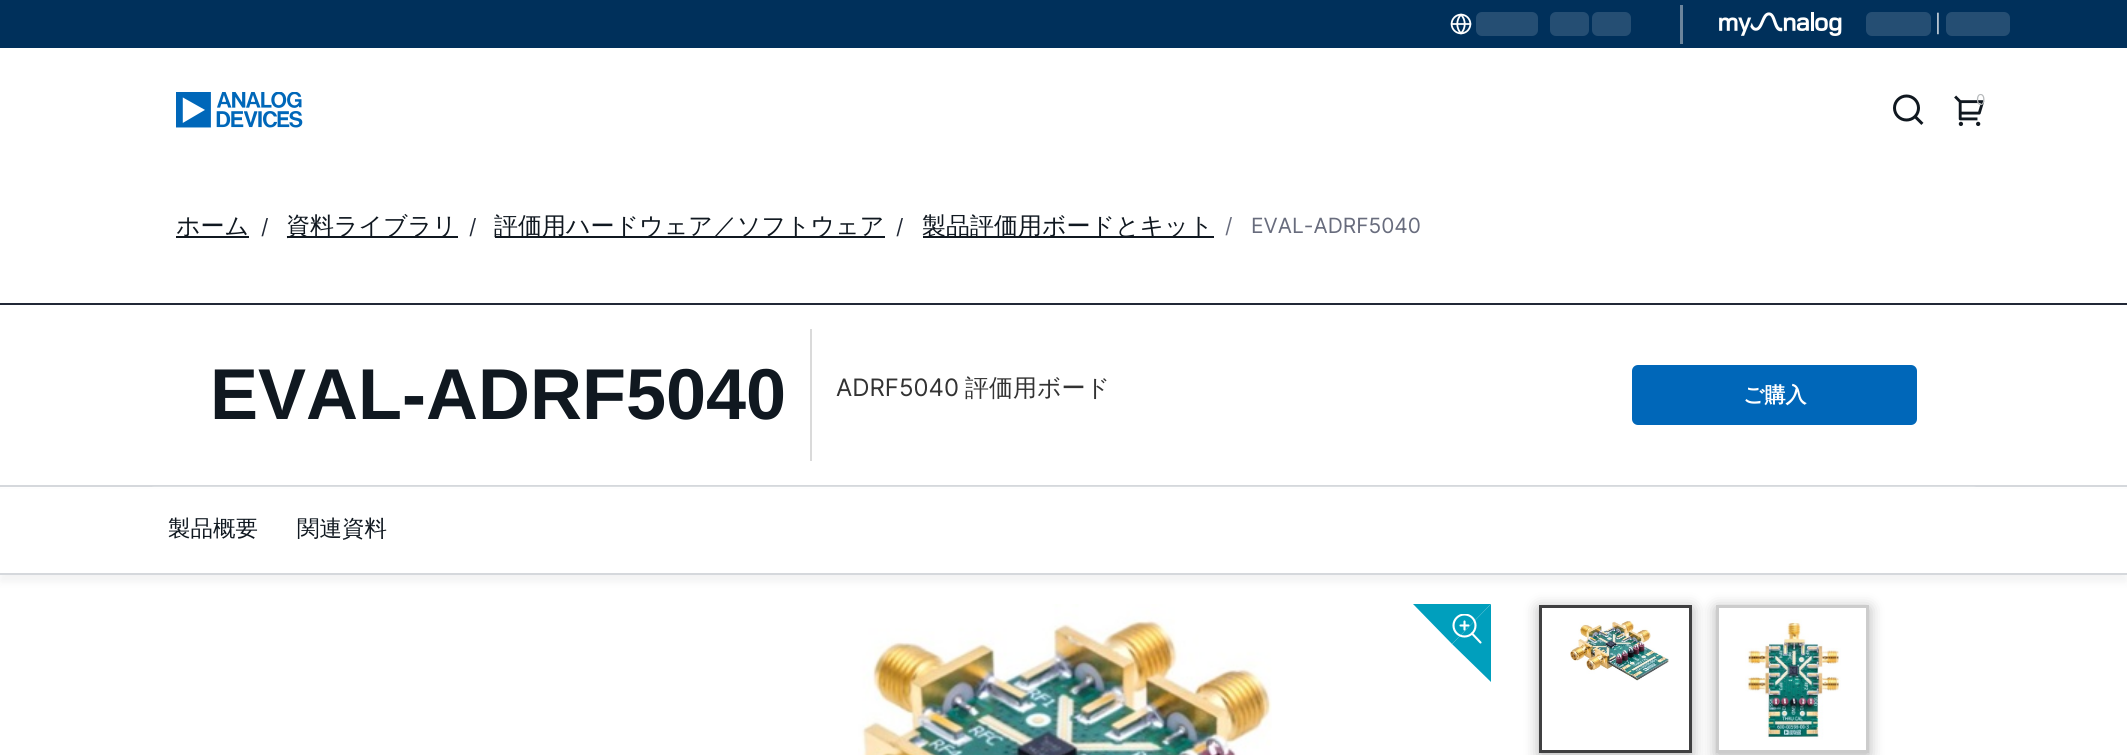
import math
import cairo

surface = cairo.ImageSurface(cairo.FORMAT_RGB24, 2127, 755)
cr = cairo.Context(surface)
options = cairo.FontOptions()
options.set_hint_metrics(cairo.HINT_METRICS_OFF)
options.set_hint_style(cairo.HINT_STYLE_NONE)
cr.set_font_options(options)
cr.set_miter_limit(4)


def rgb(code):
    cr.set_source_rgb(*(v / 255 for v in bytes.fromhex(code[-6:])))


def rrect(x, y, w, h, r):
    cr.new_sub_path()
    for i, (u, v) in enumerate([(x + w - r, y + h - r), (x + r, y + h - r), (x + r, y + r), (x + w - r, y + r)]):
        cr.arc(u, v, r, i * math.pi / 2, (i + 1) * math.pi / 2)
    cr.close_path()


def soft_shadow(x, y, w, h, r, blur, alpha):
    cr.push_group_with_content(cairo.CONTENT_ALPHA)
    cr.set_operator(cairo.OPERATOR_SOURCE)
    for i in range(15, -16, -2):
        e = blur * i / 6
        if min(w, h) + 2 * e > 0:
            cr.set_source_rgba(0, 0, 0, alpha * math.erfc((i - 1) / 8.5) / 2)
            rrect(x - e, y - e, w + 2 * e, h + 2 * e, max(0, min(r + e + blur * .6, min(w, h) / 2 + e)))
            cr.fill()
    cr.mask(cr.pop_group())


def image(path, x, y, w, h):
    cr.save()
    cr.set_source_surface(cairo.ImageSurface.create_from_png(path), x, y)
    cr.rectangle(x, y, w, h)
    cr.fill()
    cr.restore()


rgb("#ffffff")
cr.paint()
rgb("#00305b")
cr.rectangle(0, 0, 2127, 48)
cr.fill()
image("img/1.png", 1450, 13, 22, 22)
rgb("#254e73")
rrect(1476, 12, 62, 24, 6)
cr.fill()
rrect(1550, 12, 39, 24, 6)
cr.fill()
rrect(1592, 12, 39, 24, 6)
cr.fill()
rgb("#6b849c")
cr.rectangle(1680, 5, 3, 39)
cr.fill()
image("img/2.png", 1719, 12, 123, 24)
rgb("#254e73")
rrect(1866, 12, 65, 24, 6)
cr.fill()
rrect(1946, 12, 64, 24, 6)
cr.fill()
image("img/3.png", 176, 92, 127, 36)
image("img/4.png", 1893, 94, 31, 31)
image("img/5.png", 1954, 95, 31, 32)
for x, y, w, h, color in [
    (176, 236, 73, 2, "#101820"),
    (287, 236, 171, 2, "#101820"),
    (495, 236, 390, 2, "#101820"),
    (923, 236, 291, 2, "#101820"),
    (0, 303, 2127, 2, "#212836"),
    (810, 329, 2, 132, "#dadada"),
]:
    rgb(color)
    cr.rectangle(x, y, w, h)
    cr.fill()
rgb("#0067b9")
rrect(1632, 365, 285, 60, 6)
cr.fill()
rgb("#22252f")
soft_shadow(0, 492, 2127, 90, 0, 4, 0.06)
for x, y, w, h, color in [
    (0, 489, 2127, 84, "#ffffff"),
    (0, 485, 2127, 2, "#d5d8dc"),
    (0, 573, 2127, 2, "#d5d8dc"),
]:
    rgb(color)
    cr.rectangle(x, y, w, h)
    cr.fill()
cr.set_source_rgba(1, 1, 1, 0.15)
cr.new_path()
cr.move_to(154, 488)
cr.line_to(1972, 488)
cr.curve_to(1976, 488, 1978, 490, 1978, 494)
cr.line_to(1978, 568)
cr.line_to(1977, 571)
cr.curve_to(1978, 570, 1979, 569, 1979, 567)
cr.line_to(1979, 492)
cr.curve_to(1979, 489, 1976, 486, 1973, 486)
cr.line_to(155, 486)
cr.curve_to(152, 486, 150, 488, 149, 490)
cr.curve_to(150, 489, 152, 488, 154, 488)
cr.close_path()
cr.fill()
image("img/6.png", 858, 604, 414, 151)
rgb("#009fbd")
cr.new_path()
cr.move_to(1413, 604)
cr.line_to(1491, 604)
cr.line_to(1452, 644)
cr.close_path()
cr.fill()
cr.new_path()
cr.move_to(1491, 604)
cr.line_to(1491, 682)
cr.line_to(1452, 644)
cr.close_path()
cr.fill()
cr.save()
cr.rectangle(1452, 614, 30, 30)
cr.clip()
cr.arc(1464.5, 625.5, 11, 0, 2 * math.pi)
rgb("#ffffff")
cr.set_line_width(2.1)
cr.stroke()
cr.restore()
cr.new_path()
cr.move_to(1460.5, 625.5)
cr.line_to(1468.5, 625.5)
rgb("#ffffff")
cr.set_line_width(2.1)
cr.set_line_cap(cairo.LINE_CAP_ROUND)
cr.set_line_join(cairo.LINE_JOIN_ROUND)
cr.stroke()
cr.new_path()
cr.move_to(1472, 633.5)
cr.line_to(1480.5, 642.5)
cr.set_line_join(cairo.LINE_JOIN_MITER)
cr.stroke()
cr.new_path()
cr.move_to(1464.5, 621.5)
cr.line_to(1464.5, 629.5)
cr.set_line_join(cairo.LINE_JOIN_ROUND)
cr.stroke()
cr.save()
cr.set_fill_rule(cairo.FILL_RULE_EVEN_ODD)
cr.new_path()
cr.move_to(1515, 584)
cr.line_to(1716, 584)
cr.line_to(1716, 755)
cr.line_to(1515, 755)
cr.close_path()
cr.move_to(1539, 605)
cr.line_to(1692, 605)
cr.line_to(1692, 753)
cr.line_to(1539, 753)
cr.close_path()
cr.clip()
rgb("#000000")
soft_shadow(1539, 608, 153, 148, 0, 7.5, 0.3)
cr.restore()
cr.rectangle(1540.5, 606.5, 150, 145)
rgb("#404041")
cr.set_line_width(3)
cr.set_line_cap(cairo.LINE_CAP_BUTT)
cr.set_line_join(cairo.LINE_JOIN_MITER)
cr.stroke()
image("img/7.png", 1570, 620, 99, 61)
cr.save()
cr.set_fill_rule(cairo.FILL_RULE_EVEN_ODD)
cr.new_path()
cr.move_to(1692, 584)
cr.line_to(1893, 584)
cr.line_to(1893, 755)
cr.line_to(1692, 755)
cr.close_path()
cr.move_to(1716, 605)
cr.line_to(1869, 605)
cr.line_to(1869, 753)
cr.line_to(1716, 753)
cr.close_path()
cr.clip()
rgb("#000000")
soft_shadow(1716, 608, 153, 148, 0, 7.5, 0.3)
cr.restore()
cr.rectangle(1717.5, 606.5, 150, 145)
rgb("#cccccc")
cr.stroke()
image("img/8.png", 1745, 619, 96, 121)
cr.select_font_face("Inter")
cr.set_font_size(18)
rgb("#ffffff")
cr.move_to(1935, 30)
cr.show_text("|")
cr.set_font_size(15)
rgb("#b6b9bb")
cr.move_to(1976, 105)
cr.show_text("0")
cr.select_font_face("WenQuanYi Zen Hei Medium")
cr.set_font_size(24)
rgb("#101820")
cr.move_to(176, 234)
cr.show_text("ホーム")
cr.select_font_face("Inter")
cr.set_font_size(21)
rgb("#212836")
cr.move_to(261, 234)
cr.show_text("/")
cr.select_font_face("WenQuanYi Zen Hei Medium")
cr.set_font_size(24)
rgb("#101820")
cr.move_to(286, 234)
cr.show_text("資料ライブラリ")
cr.select_font_face("Inter")
cr.set_font_size(21)
rgb("#212836")
cr.move_to(469, 234)
cr.show_text("/")
cr.select_font_face("WenQuanYi Zen Hei Medium")
cr.set_font_size(24)
rgb("#101820")
cr.move_to(494, 234)
cr.show_text("評価用ハードウェア／ソフトウェア")
cr.select_font_face("Inter")
cr.set_font_size(21)
rgb("#212836")
cr.move_to(896, 234)
cr.show_text("/")
cr.select_font_face("WenQuanYi Zen Hei Medium")
cr.set_font_size(24)
rgb("#101820")
cr.move_to(922, 234)
cr.show_text("製品評価用ボードとキット")
cr.select_font_face("Inter")
cr.set_font_size(21)
rgb("#686c7d")
cr.move_to(1225, 233)
cr.show_text("/")
cr.move_to(1251, 233)
cr.show_text("EVAL-ADRF5040")
cr.select_font_face("Liberation Sans", cairo.FONT_SLANT_NORMAL, cairo.FONT_WEIGHT_BOLD)
cr.set_font_size(72)
rgb("#101820")
cr.move_to(210, 419)
cr.show_text("EVAL-ADRF5040")
cr.select_font_face("Inter")
cr.set_font_size(24)
rgb("#333333")
cr.move_to(836, 396)
cr.show_text("ADRF5040")
cr.select_font_face("WenQuanYi Zen Hei Medium")
cr.move_to(965, 396)
cr.show_text("評価用ボード")
cr.select_font_face("WenQuanYi Zen Hei", cairo.FONT_SLANT_NORMAL, cairo.FONT_WEIGHT_BOLD)
cr.set_font_size(21)
rgb("#ffffff")
cr.move_to(1743, 402)
cr.show_text("ご購入")
cr.select_font_face("WenQuanYi Zen Hei Medium")
cr.set_font_size(22.5)
rgb("#101820")
cr.move_to(168, 536)
cr.show_text("製品概要")
cr.move_to(297, 536)
cr.show_text("関連資料")
surface.write_to_png("page.png")
